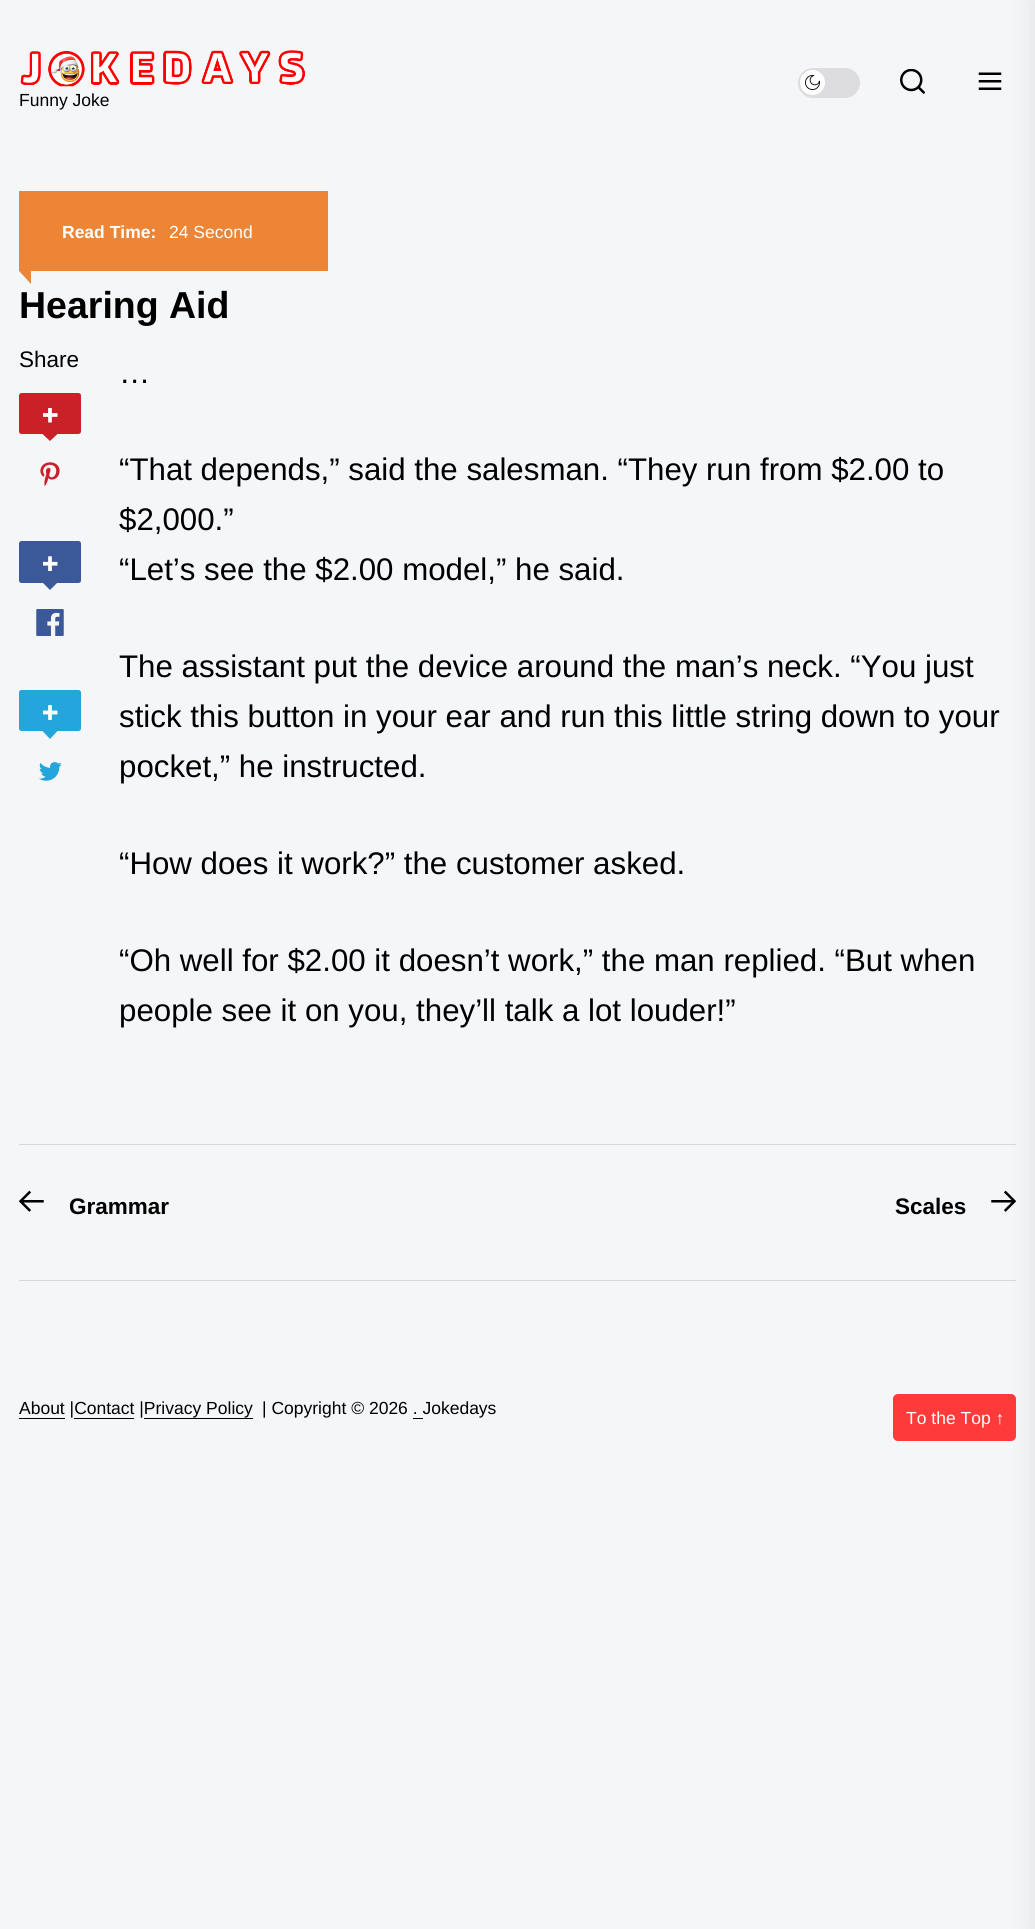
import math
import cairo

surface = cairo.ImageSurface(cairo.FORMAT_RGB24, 1035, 1929)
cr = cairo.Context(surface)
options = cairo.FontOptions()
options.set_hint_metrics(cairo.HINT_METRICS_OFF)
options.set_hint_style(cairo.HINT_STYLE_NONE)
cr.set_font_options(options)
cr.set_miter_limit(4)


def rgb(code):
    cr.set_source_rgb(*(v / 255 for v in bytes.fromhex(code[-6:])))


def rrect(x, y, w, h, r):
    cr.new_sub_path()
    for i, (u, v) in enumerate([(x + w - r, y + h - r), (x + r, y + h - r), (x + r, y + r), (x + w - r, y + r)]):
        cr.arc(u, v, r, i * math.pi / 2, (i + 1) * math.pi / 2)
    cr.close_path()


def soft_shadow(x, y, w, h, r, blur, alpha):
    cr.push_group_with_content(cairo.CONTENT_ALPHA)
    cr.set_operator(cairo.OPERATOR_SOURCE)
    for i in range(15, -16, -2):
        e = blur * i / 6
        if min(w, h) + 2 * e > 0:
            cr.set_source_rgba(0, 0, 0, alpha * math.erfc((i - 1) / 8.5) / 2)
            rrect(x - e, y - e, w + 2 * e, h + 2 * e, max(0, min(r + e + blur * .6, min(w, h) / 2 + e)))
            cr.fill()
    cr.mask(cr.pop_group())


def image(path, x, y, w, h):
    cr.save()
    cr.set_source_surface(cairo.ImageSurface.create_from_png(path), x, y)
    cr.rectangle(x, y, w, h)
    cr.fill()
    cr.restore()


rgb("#f5f6f8")
cr.paint()
rgb("#dddddf")
rrect(798, 68, 62, 30, 15)
cr.fill()
rgb("#ffffff")
cr.arc(812.5, 82.5, 12.5, 0, 2 * math.pi)
cr.fill()
image("img/1.png", 805, 75, 15, 15)
image("img/2.png", 900, 69, 25, 25)
image("img/3.png", 978, 72, 24, 18)
image("img/4.png", 20, 50, 285, 37)
rgb("#d8d8da")
cr.rectangle(19, 1144, 997, 1)
cr.fill()
cr.rectangle(19, 1280, 997, 1)
cr.fill()
image("img/12.png", 991, 1190, 25, 22)
rgb("#ff3a3a")
rrect(893, 1394, 123, 47, 5)
cr.fill()
rgb("#000000")
soft_shadow(1035, 0, 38, 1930, 0, 12.5, 0.1)
rgb("#ed8536")
cr.rectangle(19, 191, 309, 80)
cr.fill()
cr.new_path()
cr.move_to(31, 271)
cr.line_to(31, 284)
cr.line_to(19, 271)
cr.close_path()
cr.fill()
rgb("#ca2128")
rrect(19, 393, 62, 41, 2.5)
cr.fill()
image("img/5.png", 43, 408, 15, 15)
cr.new_path()
cr.move_to(42.5, 434)
cr.line_to(57.5, 434)
cr.line_to(50, 441)
cr.close_path()
cr.fill()
image("img/6.png", 40, 462, 20, 24)
rgb("#3b5998")
rrect(19, 541, 62, 42, 2.5)
cr.fill()
image("img/7.png", 43, 556, 15, 15)
cr.new_path()
cr.move_to(42.5, 582.5)
cr.line_to(57.5, 582.5)
cr.line_to(50, 590)
cr.close_path()
cr.fill()
image("img/8.png", 36, 609, 28, 27)
rgb("#24a5db")
rrect(19, 690, 62, 41, 2.5)
cr.fill()
image("img/9.png", 43, 705, 15, 15)
cr.new_path()
cr.move_to(42.5, 731)
cr.line_to(57.5, 731)
cr.line_to(50, 739)
cr.close_path()
cr.fill()
image("img/10.png", 39, 762, 23, 19)
image("img/11.png", 19, 1190, 25, 22)
for x, y, w, h, color in [
    (19, 1418, 46, 1, "#000000"),
    (74, 1418, 60, 1, "#000000"),
    (144, 1418, 109, 1, "#000000"),
    (413, 1418, 10, 1, "#000000"),
]:
    rgb(color)
    cr.rectangle(x, y, w, h)
    cr.fill()
cr.select_font_face("Liberation Sans")
cr.set_font_size(17.5)
cr.move_to(19, 106)
cr.show_text("Funny Joke")
cr.select_font_face("Liberation Sans", cairo.FONT_SLANT_NORMAL, cairo.FONT_WEIGHT_BOLD)
rgb("#ffffff")
cr.move_to(62, 238)
cr.show_text("Read Time:")
cr.select_font_face("Liberation Sans")
cr.move_to(169, 238)
cr.show_text("24 Second")
cr.select_font_face("Liberation Sans", cairo.FONT_SLANT_NORMAL, cairo.FONT_WEIGHT_BOLD)
cr.set_font_size(37.5)
rgb("#000000")
cr.move_to(19, 318)
cr.show_text("Hearing Aid")
cr.select_font_face("Liberation Sans")
cr.set_font_size(22.5)
cr.move_to(19, 367)
cr.show_text("Share")
cr.set_font_size(31.25)
for x, y, s in [
    (119, 383, "…"),
    (119, 480, "“That depends,” said the salesman. “They run from $2.00 to"),
    (119, 530, "$2,000.”"),
    (119, 580, "“Let’s see the $2.00 model,” he said."),
    (119, 677, "The assistant put the device around the man’s neck. “You just"),
    (119, 727, "stick this button in your ear and run this little string down to your"),
    (119, 777, "pocket,” he instructed."),
    (119, 874, "“How does it work?” the customer asked."),
    (119, 971, "“Oh well for $2.00 it doesn’t work,” the man replied. “But when"),
    (119, 1021, "people see it on you, they’ll talk a lot louder!”"),
]:
    cr.move_to(x, y)
    cr.show_text(s)
cr.select_font_face("Liberation Sans", cairo.FONT_SLANT_NORMAL, cairo.FONT_WEIGHT_BOLD)
cr.set_font_size(22.5)
cr.move_to(69, 1214)
cr.show_text("Grammar")
cr.move_to(895, 1214)
cr.show_text("Scales")
cr.select_font_face("Liberation Sans")
cr.set_font_size(17.5)
cr.move_to(19, 1414)
cr.show_text("About |Contact |Privacy Policy")
cr.move_to(262, 1414)
cr.show_text("| Copyright © 2026 . Jokedays")
rgb("#ffffff")
cr.move_to(906, 1424)
cr.show_text("To the Top ↑")
surface.write_to_png("page.png")
